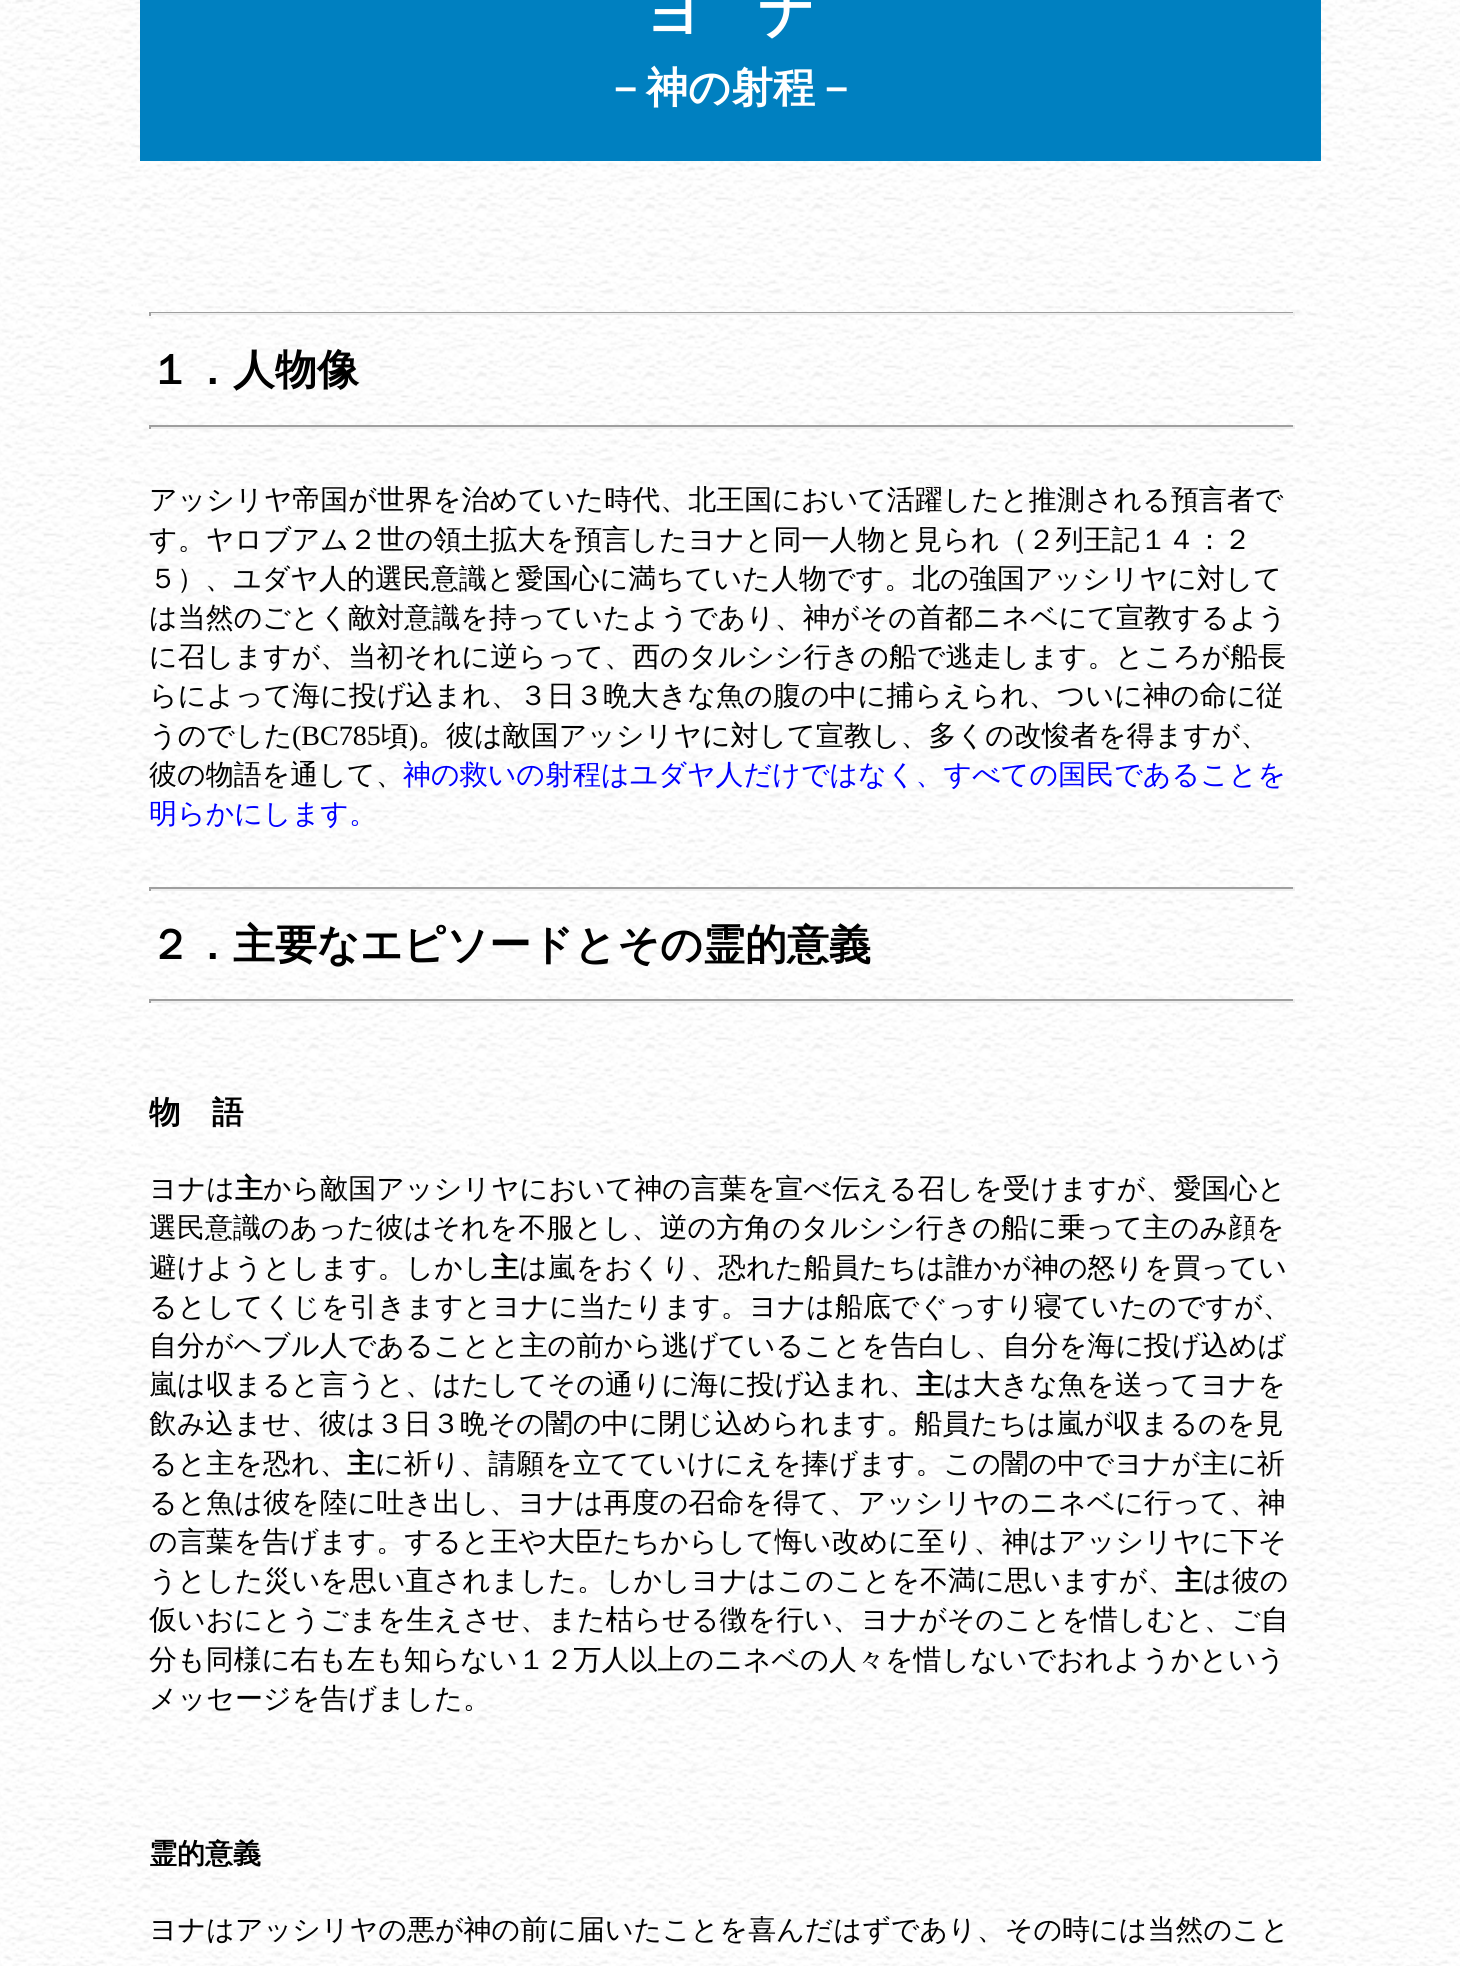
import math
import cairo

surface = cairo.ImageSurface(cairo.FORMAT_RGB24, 1460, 1966)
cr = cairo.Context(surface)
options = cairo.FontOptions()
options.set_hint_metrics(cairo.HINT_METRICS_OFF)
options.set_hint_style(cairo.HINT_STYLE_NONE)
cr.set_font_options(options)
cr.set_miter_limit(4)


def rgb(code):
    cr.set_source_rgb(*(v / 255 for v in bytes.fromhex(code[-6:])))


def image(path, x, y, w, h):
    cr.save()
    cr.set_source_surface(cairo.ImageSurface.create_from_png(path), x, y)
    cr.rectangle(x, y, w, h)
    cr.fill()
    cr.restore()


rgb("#ffffff")
cr.paint()
image("img/1.png", 0, 0, 1460, 1966)
for x, y, w, h, color in [
    (140, 0, 1181, 161, "#0080c0"),
    (149, 312, 1146, 1, "#9f9f9f"),
    (1293, 312, 2, 4, "#eeeeee"),
    (149, 313, 1146, 2, "#eeeeee"),
    (149, 312, 2, 4, "#9f9f9f"),
    (149, 425, 1146, 2, "#9f9f9f"),
    (1293, 425, 2, 4, "#eeeeee"),
    (149, 427, 1146, 2, "#eeeeee"),
    (149, 425, 2, 4, "#9f9f9f"),
    (149, 887, 1146, 2, "#9f9f9f"),
    (1293, 887, 2, 4, "#eeeeee"),
    (149, 889, 1146, 2, "#eeeeee"),
    (149, 887, 2, 4, "#9f9f9f"),
    (149, 999, 1146, 2, "#9f9f9f"),
    (1293, 999, 2, 4, "#eeeeee"),
    (149, 1001, 1146, 2, "#eeeeee"),
    (149, 999, 2, 4, "#9f9f9f"),
]:
    rgb(color)
    cr.rectangle(x, y, w, h)
    cr.fill()
cr.select_font_face("WenQuanYi Zen Hei", cairo.FONT_SLANT_NORMAL, cairo.FONT_WEIGHT_BOLD)
cr.set_font_size(56)
rgb("#ffffff")
cr.move_to(645, 31)
cr.show_text("ヨ　ナ")
cr.set_font_size(42)
cr.move_to(604, 102)
cr.show_text("－神の射程－")
rgb("#000000")
cr.move_to(149, 384)
cr.show_text("１．人物像")
cr.select_font_face("WenQuanYi Zen Hei Medium")
cr.set_font_size(28)
for x, y, s in [
    (149, 509, "アッシリヤ帝国が世界を治めていた時代、北王国において活躍したと推測される預言者で"),
    (149, 549, "す。ヤロブアム２世の領土拡大を預言したヨナと同一人物と見られ（２列王記１４：２"),
    (149, 588, "５）、ユダヤ人的選民意識と愛国心に満ちていた人物です。北の強国アッシリヤに対して"),
    (149, 627, "は当然のごとく敵対意識を持っていたようであり、神がその首都ニネベにて宣教するよう"),
    (149, 666, "に召しますが、当初それに逆らって、西のタルシシ行きの船で逃走します。ところが船長"),
    (149, 705, "らによって海に投げ込まれ、３日３晩大きな魚の腹の中に捕らえられ、ついに神の命に従"),
    (149, 745, "うのでした"),
]:
    cr.move_to(x, y)
    cr.show_text(s)
cr.select_font_face("Liberation Serif")
cr.move_to(292, 745)
cr.show_text("(BC785")
cr.select_font_face("WenQuanYi Zen Hei Medium")
cr.move_to(381, 745)
cr.show_text("頃")
cr.select_font_face("Liberation Serif")
cr.move_to(409, 745)
cr.show_text(")")
cr.select_font_face("WenQuanYi Zen Hei Medium")
cr.move_to(418, 745)
cr.show_text("。彼は敵国アッシリヤに対して宣教し、多くの改悛者を得ますが、")
cr.move_to(149, 784)
cr.show_text("彼の物語を通して、")
rgb("#0000ff")
cr.move_to(403, 784)
cr.show_text("神の救いの射程はユダヤ人だけではなく、すべての国民であることを")
cr.move_to(149, 823)
cr.show_text("明らかにします。")
cr.select_font_face("WenQuanYi Zen Hei", cairo.FONT_SLANT_NORMAL, cairo.FONT_WEIGHT_BOLD)
cr.set_font_size(42)
rgb("#000000")
cr.move_to(149, 959)
cr.show_text("２．主要なエピソードとその霊的意義")
cr.set_font_size(31.5)
cr.move_to(149, 1123)
cr.show_text("物　語")
cr.select_font_face("WenQuanYi Zen Hei Medium")
cr.set_font_size(28)
cr.move_to(149, 1198)
cr.show_text("ヨナは")
cr.select_font_face("WenQuanYi Zen Hei", cairo.FONT_SLANT_NORMAL, cairo.FONT_WEIGHT_BOLD)
cr.move_to(235, 1198)
cr.show_text("主")
cr.select_font_face("WenQuanYi Zen Hei Medium")
for x, y, s in [
    (263, 1198, "から敵国アッシリヤにおいて神の言葉を宣べ伝える召しを受けますが、愛国心と"),
    (149, 1237, "選民意識のあった彼はそれを不服とし、逆の方角のタルシシ行きの船に乗って主のみ顔を"),
    (149, 1277, "避けようとします。しかし"),
]:
    cr.move_to(x, y)
    cr.show_text(s)
cr.select_font_face("WenQuanYi Zen Hei", cairo.FONT_SLANT_NORMAL, cairo.FONT_WEIGHT_BOLD)
cr.move_to(491, 1277)
cr.show_text("主")
cr.select_font_face("WenQuanYi Zen Hei Medium")
for x, y, s in [
    (519, 1277, "は嵐をおくり、恐れた船員たちは誰かが神の怒りを買ってい"),
    (149, 1316, "るとしてくじを引きますとヨナに当たります。ヨナは船底でぐっすり寝ていたのですが、"),
    (149, 1355, "自分がヘブル人であることと主の前から逃げていることを告白し、自分を海に投げ込めば"),
    (149, 1394, "嵐は収まると言うと、はたしてその通りに海に投げ込まれ、"),
]:
    cr.move_to(x, y)
    cr.show_text(s)
cr.select_font_face("WenQuanYi Zen Hei", cairo.FONT_SLANT_NORMAL, cairo.FONT_WEIGHT_BOLD)
cr.move_to(916, 1394)
cr.show_text("主")
cr.select_font_face("WenQuanYi Zen Hei Medium")
for x, y, s in [
    (944, 1394, "は大きな魚を送ってヨナを"),
    (149, 1433, "飲み込ませ、彼は３日３晩その闇の中に閉じ込められます。船員たちは嵐が収まるのを見"),
    (149, 1473, "ると主を恐れ、"),
]:
    cr.move_to(x, y)
    cr.show_text(s)
cr.select_font_face("WenQuanYi Zen Hei", cairo.FONT_SLANT_NORMAL, cairo.FONT_WEIGHT_BOLD)
cr.move_to(347, 1473)
cr.show_text("主")
cr.select_font_face("WenQuanYi Zen Hei Medium")
for x, y, s in [
    (375, 1473, "に祈り、請願を立てていけにえを捧げます。この闇の中でヨナが主に祈"),
    (149, 1512, "ると魚は彼を陸に吐き出し、ヨナは再度の召命を得て、アッシリヤのニネベに行って、神"),
    (149, 1551, "の言葉を告げます。すると王や大臣たちからして悔い改めに至り、神はアッシリヤに下そ"),
    (149, 1590, "うとした災いを思い直されました。しかしヨナはこのことを不満に思いますが、"),
]:
    cr.move_to(x, y)
    cr.show_text(s)
cr.select_font_face("WenQuanYi Zen Hei", cairo.FONT_SLANT_NORMAL, cairo.FONT_WEIGHT_BOLD)
cr.move_to(1175, 1590)
cr.show_text("主")
cr.select_font_face("WenQuanYi Zen Hei Medium")
for x, y, s in [
    (1203, 1590, "は彼の"),
    (149, 1629, "仮いおにとうごまを生えさせ、また枯らせる徴を行い、ヨナがそのことを惜しむと、ご自"),
    (149, 1669, "分も同様に右も左も知らない１２万人以上のニネベの人々を惜しないでおれようかという"),
    (149, 1708, "メッセージを告げました。"),
]:
    cr.move_to(x, y)
    cr.show_text(s)
cr.select_font_face("WenQuanYi Zen Hei", cairo.FONT_SLANT_NORMAL, cairo.FONT_WEIGHT_BOLD)
cr.move_to(149, 1863)
cr.show_text("霊的意義")
cr.select_font_face("WenQuanYi Zen Hei Medium")
cr.move_to(149, 1939)
cr.show_text("ヨナはアッシリヤの悪が神の前に届いたことを喜んだはずであり、その時には当然のこと")
surface.write_to_png("page.png")
